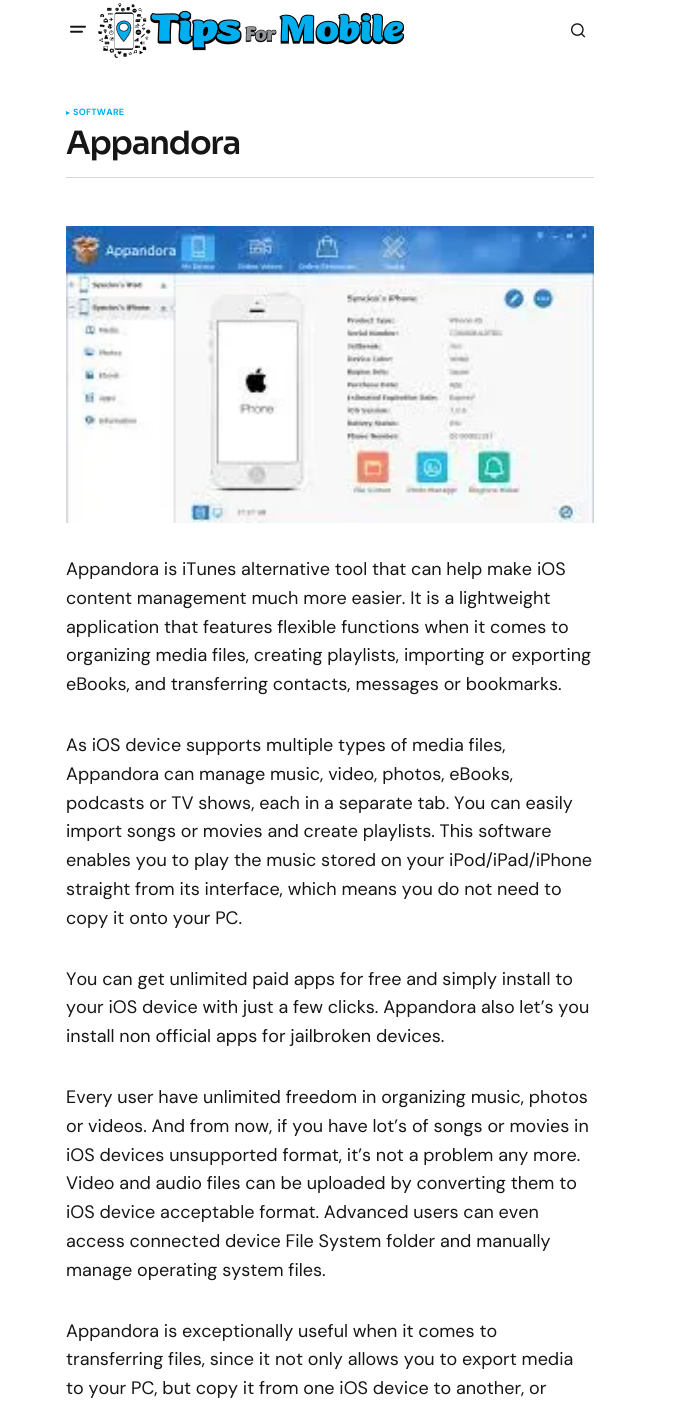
import math
import cairo

surface = cairo.ImageSurface(cairo.FORMAT_RGB24, 675, 1407)
cr = cairo.Context(surface)
options = cairo.FontOptions()
options.set_hint_metrics(cairo.HINT_METRICS_OFF)
options.set_hint_style(cairo.HINT_STYLE_NONE)
cr.set_font_options(options)
cr.set_miter_limit(4)


def rgb(code):
    cr.set_source_rgb(*(v / 255 for v in bytes.fromhex(code[-6:])))


def tracked(x, y, s, letter, word):
    cr.move_to(x, y)
    for ch in s:
        cr.show_text(ch)
        cr.rel_move_to(letter + word * (ch == ' '), 0)


def image(path, x, y, w, h):
    cr.save()
    cr.set_source_surface(cairo.ImageSurface.create_from_png(path), x, y)
    cr.rectangle(x, y, w, h)
    cr.fill()
    cr.restore()


rgb("#ffffff")
cr.paint()
image("img/1.png", 70, 25, 16, 8)
image("img/2.png", 98, 3, 306, 55)
image("img/3.png", 570, 23, 16, 15)
rgb("#00aeef")
cr.new_path()
cr.move_to(70, 113)
cr.line_to(66, 115)
cr.line_to(66, 111)
cr.close_path()
cr.fill()
rgb("#d9d9d9")
cr.rectangle(66, 177, 528, 1)
cr.fill()
image("img/4.png", 66, 226, 528, 297)
cr.select_font_face("DM Sans", cairo.FONT_SLANT_NORMAL, cairo.FONT_WEIGHT_BOLD)
cr.set_font_size(9)
rgb("#00aeef")
tracked(73, 115, "SOFTWARE", 0.25, 0)
cr.select_font_face("Sora SemiBold")
cr.set_font_size(32)
rgb("#161616")
tracked(66, 154, "Appandora", -1.25, 0)
cr.select_font_face("DM Sans")
cr.set_font_size(18)
for x, y, s in [
    (66, 575, "Appandora is iTunes alternative tool that can help make iOS"),
    (66, 604, "content management much more easier. It is a lightweight"),
    (66, 633, "application that features flexible functions when it comes to"),
    (66, 661, "organizing media files, creating playlists, importing or exporting"),
    (66, 690, "eBooks, and transferring contacts, messages or bookmarks."),
    (66, 751, "As iOS device supports multiple types of media files,"),
    (66, 780, "Appandora can manage music, video, photos, eBooks,"),
    (66, 809, "podcasts or TV shows, each in a separate tab. You can easily"),
    (66, 837, "import songs or movies and create playlists. This software"),
    (66, 866, "enables you to play the music stored on your iPod/iPad/iPhone"),
    (66, 895, "straight from its interface, which means you do not need to"),
    (66, 924, "copy it onto your PC."),
    (66, 985, "You can get unlimited paid apps for free and simply install to"),
    (66, 1013, "your iOS device with just a few clicks. Appandora also let’s you"),
    (66, 1042, "install non official apps for jailbroken devices."),
    (66, 1103, "Every user have unlimited freedom in organizing music, photos"),
    (66, 1132, "or videos. And from now, if you have lot’s of songs or movies in"),
    (66, 1161, "iOS devices unsupported format, it’s not a problem any more."),
    (66, 1189, "Video and audio files can be uploaded by converting them to"),
    (66, 1218, "iOS device acceptable format. Advanced users can even"),
    (66, 1247, "access connected device File System folder and manually"),
    (66, 1276, "manage operating system files."),
    (66, 1337, "Appandora is exceptionally useful when it comes to"),
    (66, 1365, "transferring files, since it not only allows you to export media"),
    (66, 1394, "to your PC, but copy it from one iOS device to another, or"),
]:
    cr.move_to(x, y)
    cr.show_text(s)
surface.write_to_png("page.png")
